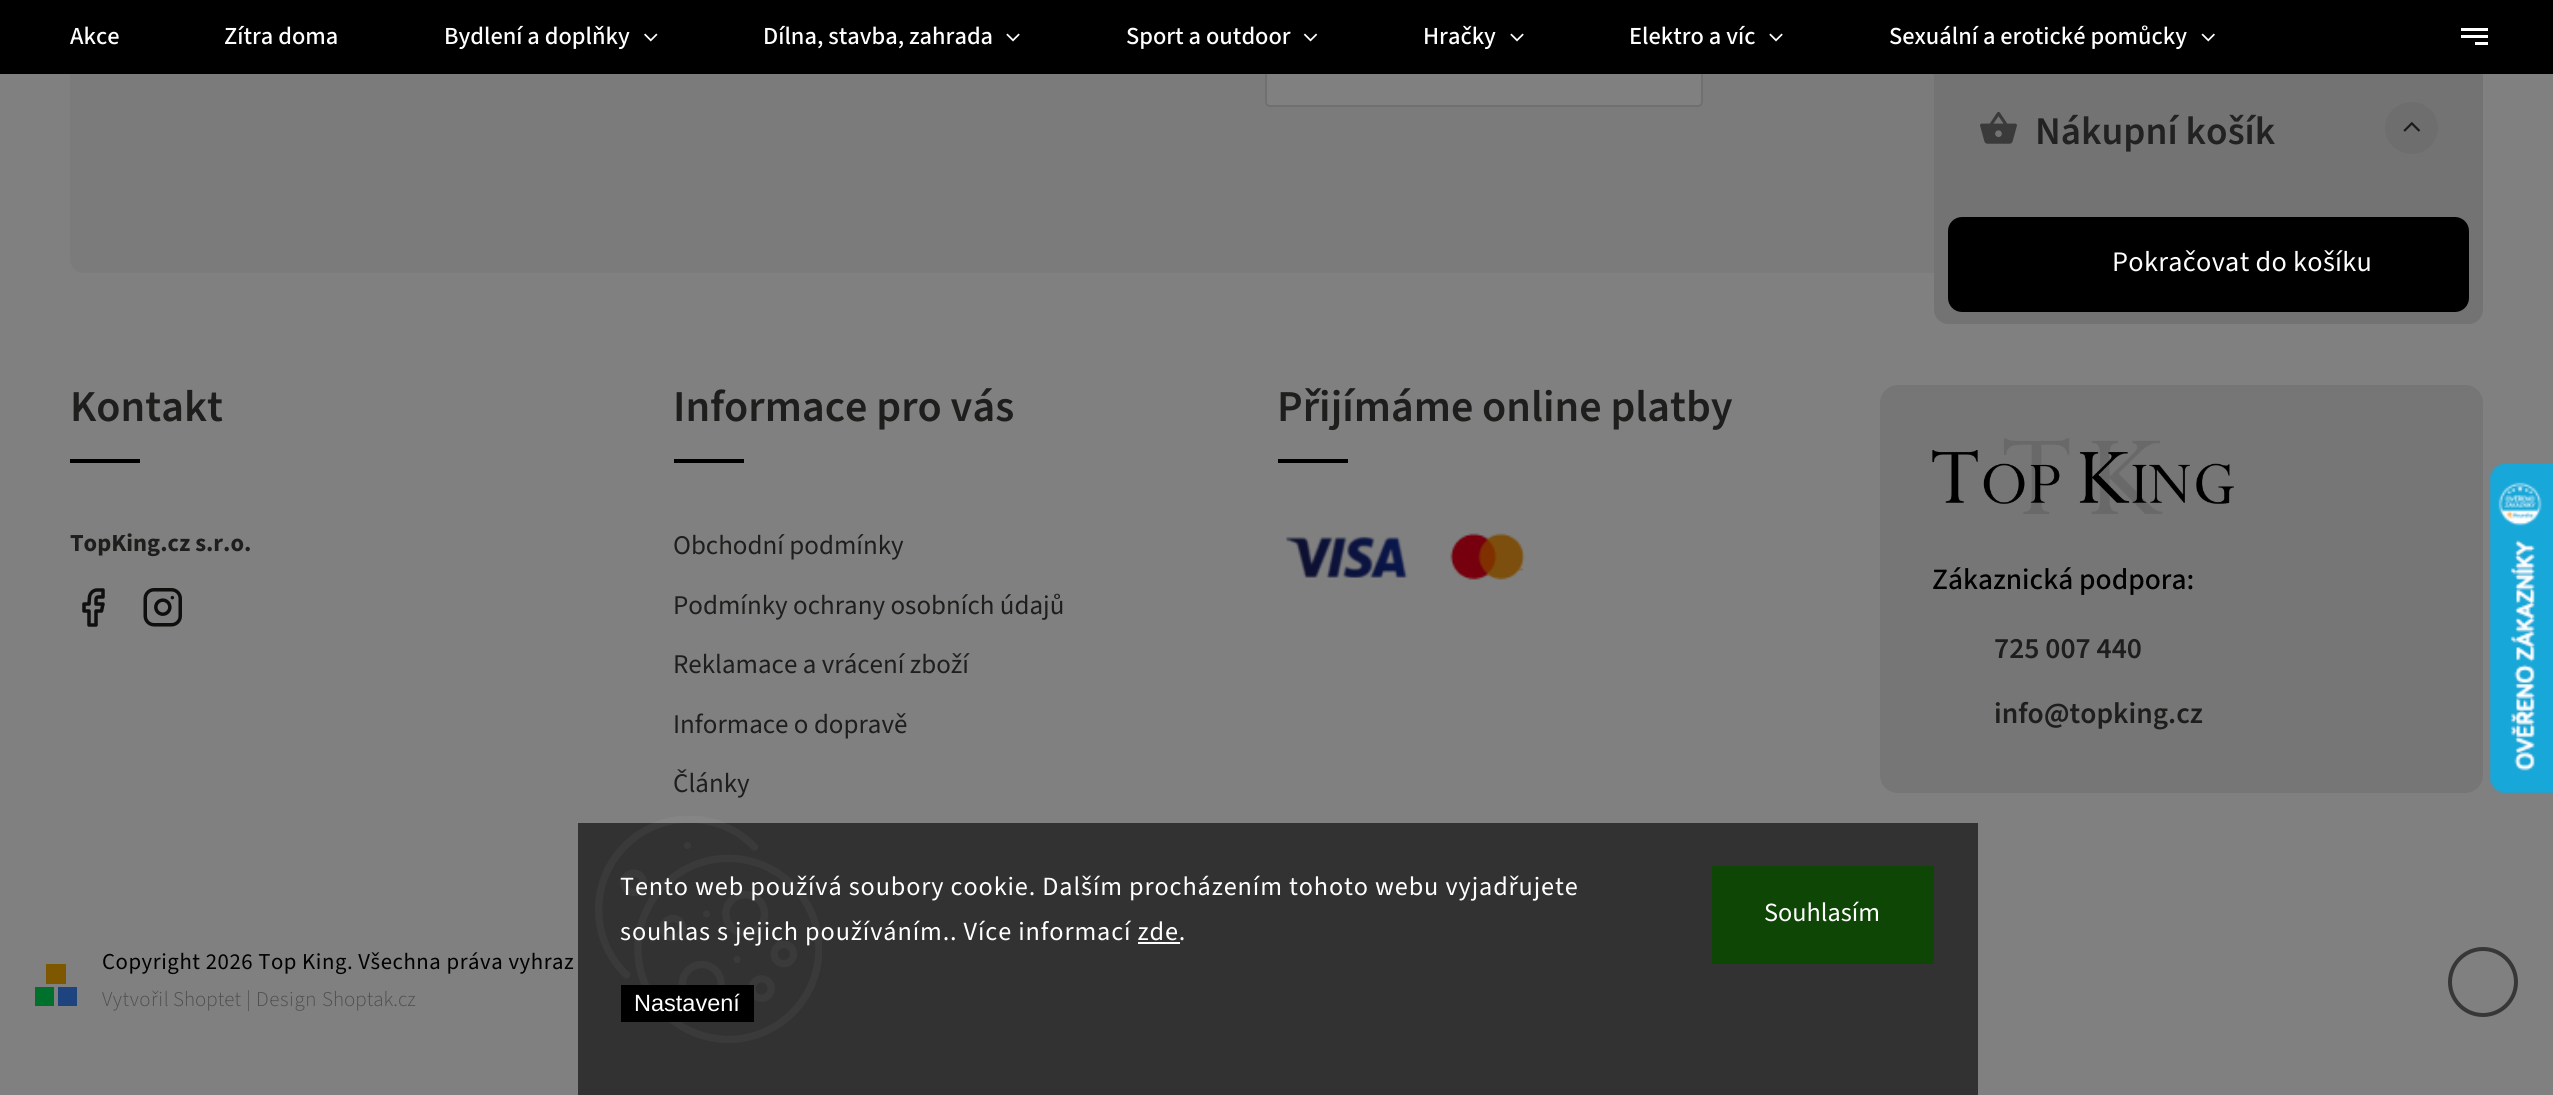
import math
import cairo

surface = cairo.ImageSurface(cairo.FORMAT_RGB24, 2553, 1095)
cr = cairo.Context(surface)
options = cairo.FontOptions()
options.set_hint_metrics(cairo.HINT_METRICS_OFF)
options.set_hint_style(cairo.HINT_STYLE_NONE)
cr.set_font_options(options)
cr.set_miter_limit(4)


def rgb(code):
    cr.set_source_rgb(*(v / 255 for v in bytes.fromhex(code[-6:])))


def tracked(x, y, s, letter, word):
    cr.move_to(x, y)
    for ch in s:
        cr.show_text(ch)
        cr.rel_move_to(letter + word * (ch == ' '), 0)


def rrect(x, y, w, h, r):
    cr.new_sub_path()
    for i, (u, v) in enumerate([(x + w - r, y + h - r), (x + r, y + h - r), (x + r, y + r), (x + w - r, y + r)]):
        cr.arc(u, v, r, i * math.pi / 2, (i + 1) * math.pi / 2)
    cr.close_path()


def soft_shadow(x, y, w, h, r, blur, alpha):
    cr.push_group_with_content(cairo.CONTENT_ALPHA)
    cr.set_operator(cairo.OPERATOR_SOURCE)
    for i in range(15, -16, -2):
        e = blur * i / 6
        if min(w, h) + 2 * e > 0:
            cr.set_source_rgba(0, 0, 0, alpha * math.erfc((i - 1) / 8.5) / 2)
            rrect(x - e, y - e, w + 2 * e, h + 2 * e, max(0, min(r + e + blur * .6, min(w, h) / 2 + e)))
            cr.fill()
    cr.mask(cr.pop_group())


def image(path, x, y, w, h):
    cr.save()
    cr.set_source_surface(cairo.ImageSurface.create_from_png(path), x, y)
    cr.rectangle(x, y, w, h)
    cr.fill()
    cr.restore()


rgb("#ffffff")
cr.paint()
rgb("#f6f6f6")
rrect(70, -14, 2413, 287, 14)
cr.fill()
rgb("#ffffff")
rrect(1266, 38, 436, 68, 4)
cr.fill_preserve()
rgb("#dfdfdf")
cr.stroke()
rgb("#e6e6e6")
cr.new_path()
cr.move_to(1934, 74)
cr.line_to(2483, 74)
cr.line_to(2483, 310)
cr.curve_to(2483, 317.5, 2476.5, 324, 2469, 324)
cr.line_to(1948, 324)
cr.curve_to(1940.5, 324, 1934, 317.5, 1934, 310)
cr.close_path()
cr.fill()
image("img/5.png", 1980, 112, 37, 32)
rgb("#dbdbdb")
cr.new_path()
cr.move_to(2412, 154)
cr.curve_to(2397, 154, 2385, 142, 2385, 128)
cr.curve_to(2385, 113, 2397, 102, 2412, 102)
cr.curve_to(2426, 102, 2438, 113, 2438, 128)
cr.curve_to(2438, 142, 2426, 154, 2412, 154)
cr.close_path()
cr.fill()
image("img/6.png", 2403, 121, 18, 11)
rgb("#000000")
rrect(1948, 217, 521, 95, 14)
cr.fill()
cr.rectangle(70, 459, 70, 4)
cr.fill()
cr.new_path()
cr.move_to(103, 590)
cr.line_to(97, 590)
cr.curve_to(93.5, 590, 90, 593, 89.5, 597)
cr.line_to(89, 604)
cr.line_to(84, 604)
cr.line_to(84, 611)
cr.line_to(89, 611)
cr.line_to(89, 625)
cr.line_to(96, 625)
cr.line_to(96, 611)
cr.line_to(101.5, 611)
cr.line_to(103, 604)
cr.line_to(96, 604)
cr.curve_to(96, 596, 95.5, 597, 103, 597)
cr.close_path()
rgb("#1e1e1c")
cr.set_line_width(3.5)
cr.set_line_cap(cairo.LINE_CAP_ROUND)
cr.set_line_join(cairo.LINE_JOIN_ROUND)
cr.stroke()
image("img/7.png", 143, 588, 39, 39)
rgb("#000000")
cr.rectangle(674, 459, 70, 4)
cr.fill()
cr.rectangle(1278, 459, 70, 4)
cr.fill()
image("img/8.png", 1286, 533, 239, 47)
rgb("#ebebeb")
rrect(1880, 385, 603, 408, 18)
cr.fill()
image("img/9.png", 1932, 438, 302, 76)
for x, y, w, h, color in [
    (46, 964, 20, 20, "#fcaf00"),
    (35, 987, 19, 19, "#00e25a"),
    (58, 987, 19, 19, "#3b88ff"),
]:
    rgb(color)
    cr.rectangle(x, y, w, h)
    cr.fill()
cr.arc(2483, 982, 33, 0, 2 * math.pi)
rgb("#6d6d6d")
cr.set_line_width(4)
cr.set_line_cap(cairo.LINE_CAP_BUTT)
cr.set_line_join(cairo.LINE_JOIN_MITER)
cr.stroke()
rgb("#000000")
soft_shadow(-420, -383, 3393, 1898, 0, 140, 0.5)
rgb("#000000")
cr.rectangle(0, 0, 2553, 74)
cr.fill()
image("img/1.png", 644, 33, 14, 9)
image("img/2.png", 1006, 33, 14, 9)
image("img/3.png", 1303, 33, 15, 9)
image("img/2.png", 1510, 33, 14, 9)
image("img/2.png", 1769, 33, 14, 9)
image("img/4.png", 2201, 33, 14, 9)
for x, y, w, h, color in [
    (2461, 28, 27, 3, "#ffffff"),
    (2461, 35, 27, 3, "#ffffff"),
    (2475, 42, 13, 3, "#ffffff"),
]:
    rgb(color)
    cr.rectangle(x, y, w, h)
    cr.fill()
image("img/10.png", 2490, 463, 63, 330)
rgb("#323232")
cr.rectangle(578, 823, 1400, 272)
cr.fill()
image("img/11.png", 595, 816, 227, 227)
for x, y, w, h, color in [
    (1138, 942, 42, 2, "#ffffff"),
    (621, 985, 133, 37, "#000000"),
    (1712, 866, 222, 98, "#0e4606"),
]:
    rgb(color)
    cr.rectangle(x, y, w, h)
    cr.fill()
cr.select_font_face("Source Sans 3 Medium")
cr.set_font_size(24.5)
rgb("#ffffff")
for x, y, s in [
    (70, 44, "Akce"),
    (224, 44, "Zítra doma"),
    (444, 44, "Bydlení a doplňky"),
    (763, 44, "Dílna, stavba, zahrada"),
    (1126, 44, "Sport a outdoor"),
    (1423, 44, "Hračky"),
    (1629, 44, "Elektro a víc"),
    (1889, 44, "Sexuální a erotické pomůcky"),
]:
    cr.move_to(x, y)
    cr.show_text(s)
cr.select_font_face("Source Sans 3 SemiBold")
cr.set_font_size(39.25)
rgb("#222222")
cr.move_to(2035, 144)
cr.show_text("Nákupní košík")
cr.select_font_face("Source Sans 3")
cr.set_font_size(28.25)
rgb("#ffffff")
tracked(2112, 271, "Pokračovat do košíku", 0.3, 0)
cr.select_font_face("Source Sans 3 SemiBold")
cr.set_font_size(44.1)
rgb("#1e1e1c")
cr.move_to(70, 421)
cr.show_text("Kontakt")
cr.select_font_face("Source Sans 3", cairo.FONT_SLANT_NORMAL, cairo.FONT_WEIGHT_BOLD)
cr.set_font_size(24.5)
cr.move_to(70, 551)
cr.show_text("TopKing.cz s.r.o.")
cr.select_font_face("Source Sans 3 SemiBold")
cr.set_font_size(44.1)
cr.move_to(673, 421)
cr.show_text("Informace pro vás")
cr.select_font_face("Source Sans 3")
cr.set_font_size(27)
for x, y, s in [
    (673, 554, "Obchodní podmínky"),
    (673, 614, "Podmínky ochrany osobních údajů"),
    (673, 673, "Reklamace a vrácení zboží"),
    (673, 733, "Informace o dopravě"),
    (673, 792, "Články"),
]:
    cr.move_to(x, y)
    cr.show_text(s)
cr.select_font_face("Source Sans 3 SemiBold")
cr.set_font_size(44.1)
cr.move_to(1277, 421)
cr.show_text("Přijímáme online platby")
cr.select_font_face("Source Sans 3 Medium")
cr.set_font_size(29.5)
rgb("#000000")
cr.move_to(1932, 589)
cr.show_text("Zákaznická podpora:")
cr.select_font_face("Source Sans 3 SemiBold")
rgb("#1e1e1c")
cr.move_to(1994, 658)
cr.show_text("725 007 440")
cr.move_to(1994, 723)
cr.show_text("info@topking.cz")
cr.select_font_face("Source Sans 3")
cr.set_font_size(22.75)
rgb("#000000")
tracked(102, 969, "Copyright 2026 Top King. Všechna práva vyhraz", 0.55, 0)
cr.select_font_face("Source Sans 3 Light")
cr.set_font_size(21)
rgb("#4e4e4e")
tracked(102, 1006, "Vytvořil", 0.55, 0)
cr.move_to(173, 1006)
cr.show_text("Shoptet")
tracked(246, 1006, "| Design", 0.55, 0)
cr.move_to(322, 1006)
cr.show_text("Shoptak.cz")
cr.select_font_face("Source Sans 3")
cr.set_font_size(26.25)
rgb("#ffffff")
tracked(620, 895, "Tento web používá soubory cookie. Dalším procházením tohoto webu vyjadřujete", 0.88, 0)
tracked(620, 940, "souhlas s jejich používáním.. Více informací zde.", 0.88, 0)
cr.select_font_face("Liberation Sans")
cr.set_font_size(23.5)
cr.move_to(634, 1011)
cr.show_text("Nastavení")
cr.select_font_face("Source Sans 3")
cr.set_font_size(26.25)
cr.move_to(1764, 921)
cr.show_text("Souhlasím")
surface.write_to_png("page.png")
